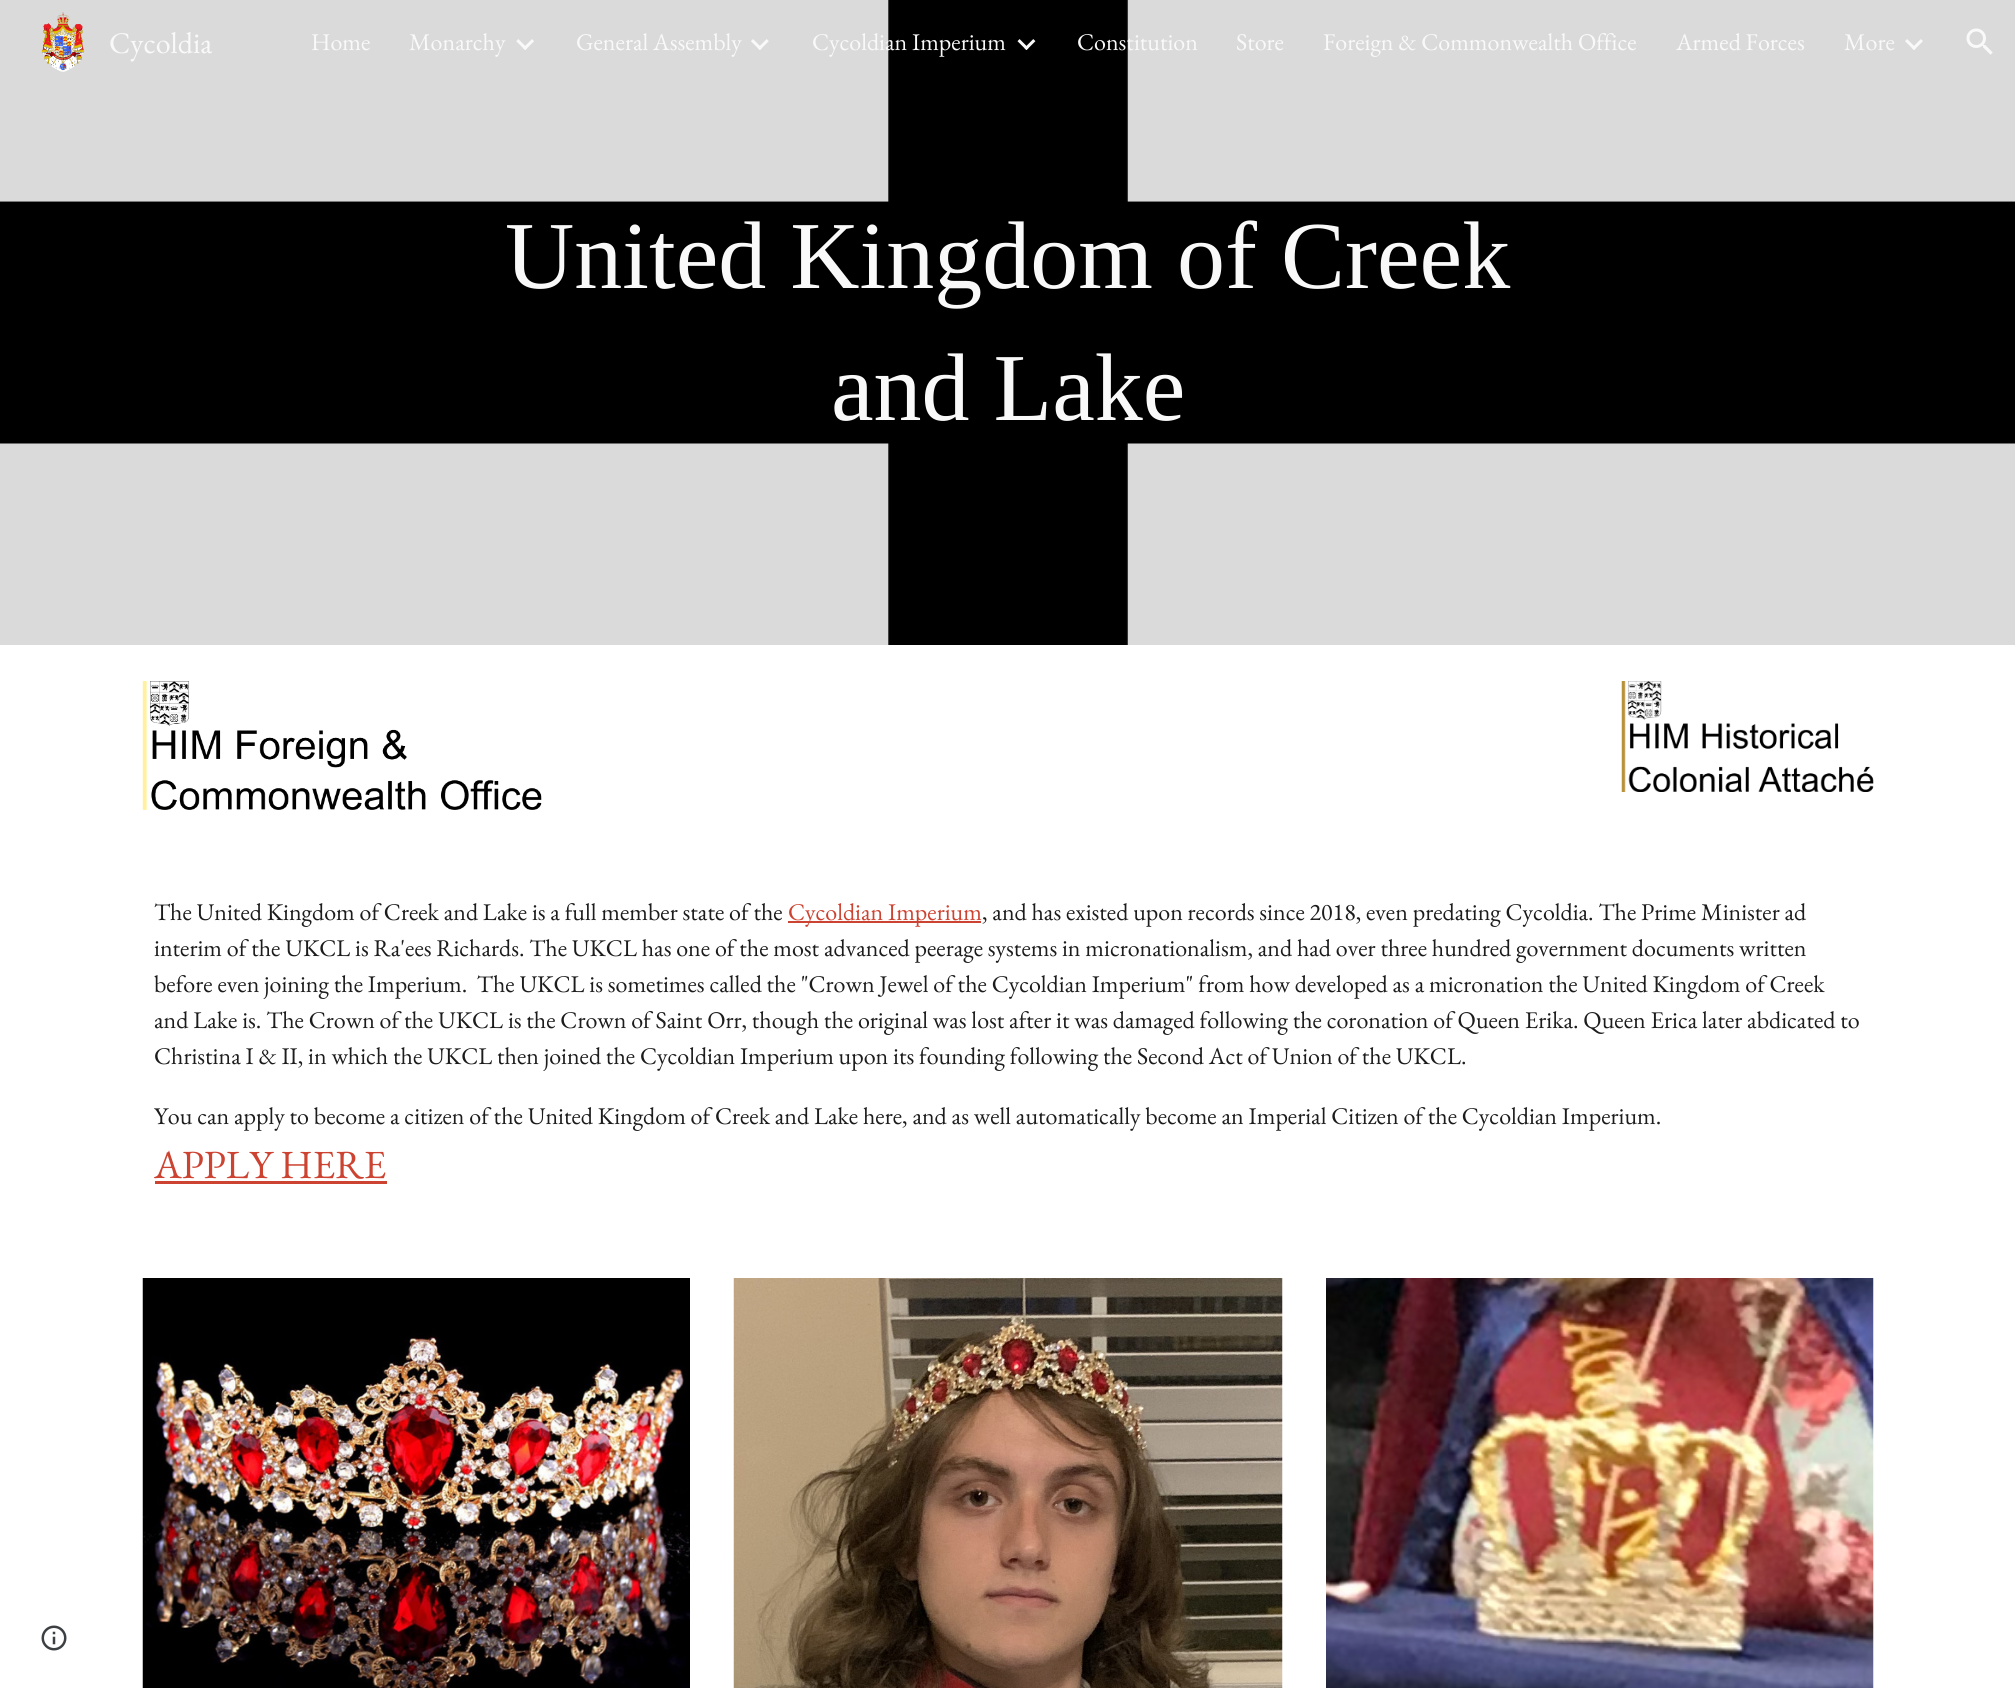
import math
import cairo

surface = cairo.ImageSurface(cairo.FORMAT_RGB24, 2015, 1688)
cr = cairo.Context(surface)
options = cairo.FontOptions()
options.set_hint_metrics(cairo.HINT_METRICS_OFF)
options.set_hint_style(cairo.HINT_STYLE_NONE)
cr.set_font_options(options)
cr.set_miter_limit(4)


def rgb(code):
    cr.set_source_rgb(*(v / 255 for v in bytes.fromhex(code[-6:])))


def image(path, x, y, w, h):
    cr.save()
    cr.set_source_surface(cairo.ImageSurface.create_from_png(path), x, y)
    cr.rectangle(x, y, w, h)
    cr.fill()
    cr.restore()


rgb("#ffffff")
cr.paint()
image("img/7.png", 0, 0, 2015, 645)
image("img/1.png", 41, 12, 43, 60)
image("img/2.png", 516, 39, 18, 11)
image("img/3.png", 751, 39, 18, 11)
image("img/4.png", 1017, 39, 19, 11)
image("img/5.png", 1905, 39, 18, 11)
image("img/6.png", 1966, 28, 27, 27)
image("img/8.png", 142, 681, 400, 129)
image("img/9.png", 1621, 681, 253, 111)
rgb("#cc4331")
cr.rectangle(788, 921, 193, 2)
cr.fill()
cr.rectangle(155, 1181, 232, 3)
cr.fill()
image("img/10.png", 142, 1278, 548, 410)
image("img/11.png", 733, 1278, 550, 410)
image("img/12.png", 1326, 1278, 548, 410)
image("img/13.png", 41, 1625, 26, 26)
cr.select_font_face("EB Garamond")
cr.set_font_size(30)
rgb("#f9f9f9")
cr.move_to(109, 53)
cr.show_text("Cycoldia")
cr.set_font_size(24)
for x, y, s in [
    (311, 50, "Home"),
    (409, 50, "Monarchy"),
    (576, 50, "General Assembly"),
    (812, 50, "Cycoldian Imperium"),
    (1077, 50, "Constitution"),
    (1236, 50, "Store"),
    (1323, 50, "Foreign & Commonwealth Office"),
    (1676, 50, "Armed Forces"),
    (1844, 50, "More"),
]:
    cr.move_to(x, y)
    cr.show_text(s)
cr.select_font_face("Liberation Serif")
cr.set_font_size(96)
cr.move_to(505, 288)
cr.show_text("United Kingdom of Creek")
cr.move_to(831, 420)
cr.show_text("and Lake")
cr.select_font_face("EB Garamond")
cr.set_font_size(24)
rgb("#1c1c1c")
cr.move_to(154, 920)
cr.show_text("The United Kingdom of Creek and Lake is a full member state of the")
rgb("#cc4331")
cr.move_to(788, 920)
cr.show_text("Cycoldian Imperium")
rgb("#1c1c1c")
for x, y, s in [
    (982, 920, ", and has existed upon records since 2018, even predating Cycoldia. The Prime Minister ad"),
    (154, 956, "interim of the UKCL is Ra'ees Richards. The UKCL has one of the most advanced peerage systems in micronationalism, and had over three hundred government documents written"),
    (154, 992, "before even joining the Imperium.  The UKCL is sometimes called the \"Crown Jewel of the Cycoldian Imperium\" from how developed as a micronation the United Kingdom of Creek"),
    (154, 1028, "and Lake is. The Crown of the UKCL is the Crown of Saint Orr, though the original was lost after it was damaged following the coronation of Queen Erika. Queen Erica later abdicated to"),
    (154, 1064, "Christina I & II, in which the UKCL then joined the Cycoldian Imperium upon its founding following the Second Act of Union of the UKCL."),
    (154, 1124, "You can apply to become a citizen of the United Kingdom of Creek and Lake here, and as well automatically become an Imperial Citizen of the Cycoldian Imperium."),
]:
    cr.move_to(x, y)
    cr.show_text(s)
cr.set_font_size(40)
rgb("#cc4331")
cr.move_to(154, 1178)
cr.show_text("APPLY HERE")
surface.write_to_png("page.png")
